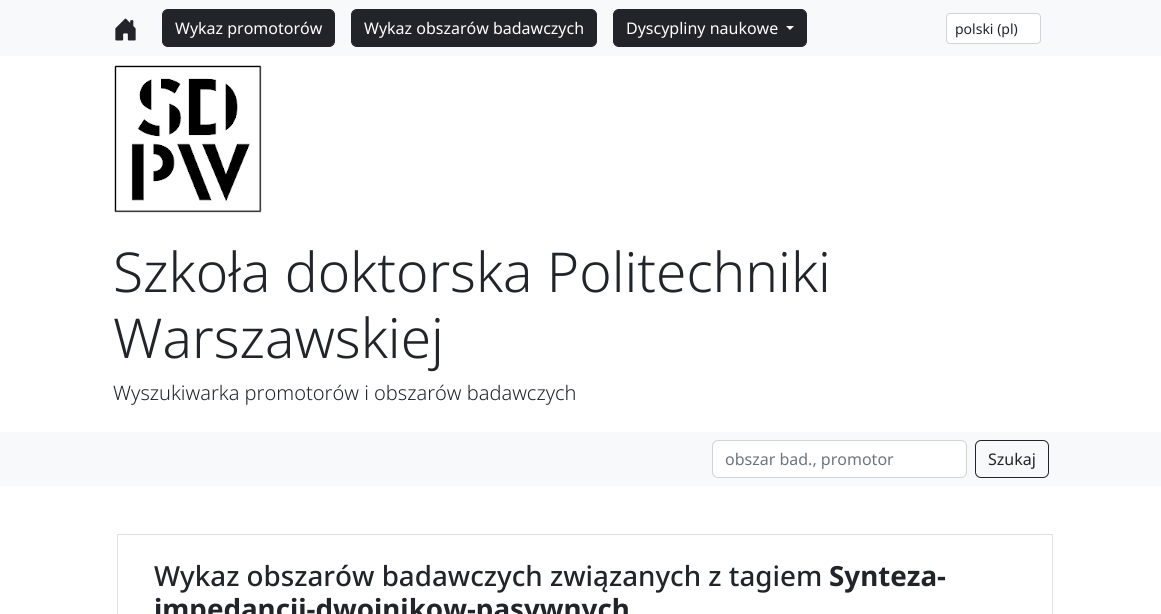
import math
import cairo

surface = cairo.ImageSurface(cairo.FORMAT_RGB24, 1161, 614)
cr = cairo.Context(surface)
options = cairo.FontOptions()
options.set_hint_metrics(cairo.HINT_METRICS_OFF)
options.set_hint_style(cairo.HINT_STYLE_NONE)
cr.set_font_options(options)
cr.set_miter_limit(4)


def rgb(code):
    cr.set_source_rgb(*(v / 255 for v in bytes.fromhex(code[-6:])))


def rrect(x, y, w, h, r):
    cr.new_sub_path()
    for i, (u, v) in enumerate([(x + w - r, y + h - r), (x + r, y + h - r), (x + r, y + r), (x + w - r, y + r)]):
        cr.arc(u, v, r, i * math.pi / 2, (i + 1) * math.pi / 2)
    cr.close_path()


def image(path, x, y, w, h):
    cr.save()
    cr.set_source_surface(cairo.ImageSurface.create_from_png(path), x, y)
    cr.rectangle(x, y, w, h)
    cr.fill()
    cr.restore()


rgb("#ffffff")
cr.paint()
rgb("#f8f9fa")
cr.rectangle(0, 0, 1161, 56)
cr.fill()
image("img/1.png", 115, 18, 21, 23)
rgb("#212529")
rrect(162.5, 9.5, 172, 37, 5.5)
cr.fill_preserve()
cr.set_line_width(1)
cr.stroke()
rrect(351.5, 9.5, 245, 37, 5.5)
cr.fill_preserve()
cr.stroke()
rrect(613.5, 9.5, 193, 37, 5.5)
cr.fill_preserve()
cr.stroke()
rgb("#ffffff")
cr.new_path()
cr.move_to(786, 26)
cr.line_to(794, 26)
cr.line_to(790, 30)
cr.close_path()
cr.fill()
rrect(946.5, 13.5, 94, 30, 3.5)
cr.fill_preserve()
rgb("#ced4da")
cr.stroke()
image("img/2.png", 114, 65, 148, 148)
rgb("#f8f9fa")
cr.rectangle(0, 432, 1161, 54)
cr.fill()
rgb("#ffffff")
rrect(712.5, 440.5, 254, 37, 5.5)
cr.fill_preserve()
rgb("#ced4da")
cr.stroke()
rrect(975.5, 440.5, 73, 37, 5.5)
rgb("#212529")
cr.stroke()
cr.rectangle(117.5, 534.5, 935, 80)
rgb("#dee2e6")
cr.stroke()
cr.select_font_face("Noto Sans")
cr.set_font_size(16)
rgb("#ffffff")
for x, y, s in [
    (175, 34, "Wykaz promotorów"),
    (364, 34, "Wykaz obszarów badawczych"),
    (626, 34, "Dyscypliny naukowe"),
]:
    cr.move_to(x, y)
    cr.show_text(s)
cr.set_font_size(14)
rgb("#212529")
cr.move_to(955, 34)
cr.show_text("polski (pl)")
cr.select_font_face("Noto Sans Light")
cr.set_font_size(55)
cr.move_to(113, 292)
cr.show_text("Szkoła doktorska Politechniki")
cr.move_to(113, 358)
cr.show_text("Warszawskiej")
cr.set_font_size(20)
cr.move_to(113, 400)
cr.show_text("Wyszukiwarka promotorów i obszarów badawczych")
cr.select_font_face("Noto Sans")
cr.set_font_size(16)
rgb("#6c757d")
cr.move_to(725, 465)
cr.show_text("obszar bad., promotor")
rgb("#212529")
cr.move_to(988, 465)
cr.show_text("Szukaj")
cr.select_font_face("Noto Sans Medium")
cr.set_font_size(27.75)
cr.move_to(154, 586)
cr.show_text("Wykaz obszarów badawczych związanych z tagiem")
cr.select_font_face("Noto Sans", cairo.FONT_SLANT_NORMAL, cairo.FONT_WEIGHT_BOLD)
cr.move_to(829, 586)
cr.show_text("Synteza-")
cr.move_to(154, 619)
cr.show_text("impedancji-dwojnikow-pasywnych")
surface.write_to_png("page.png")
